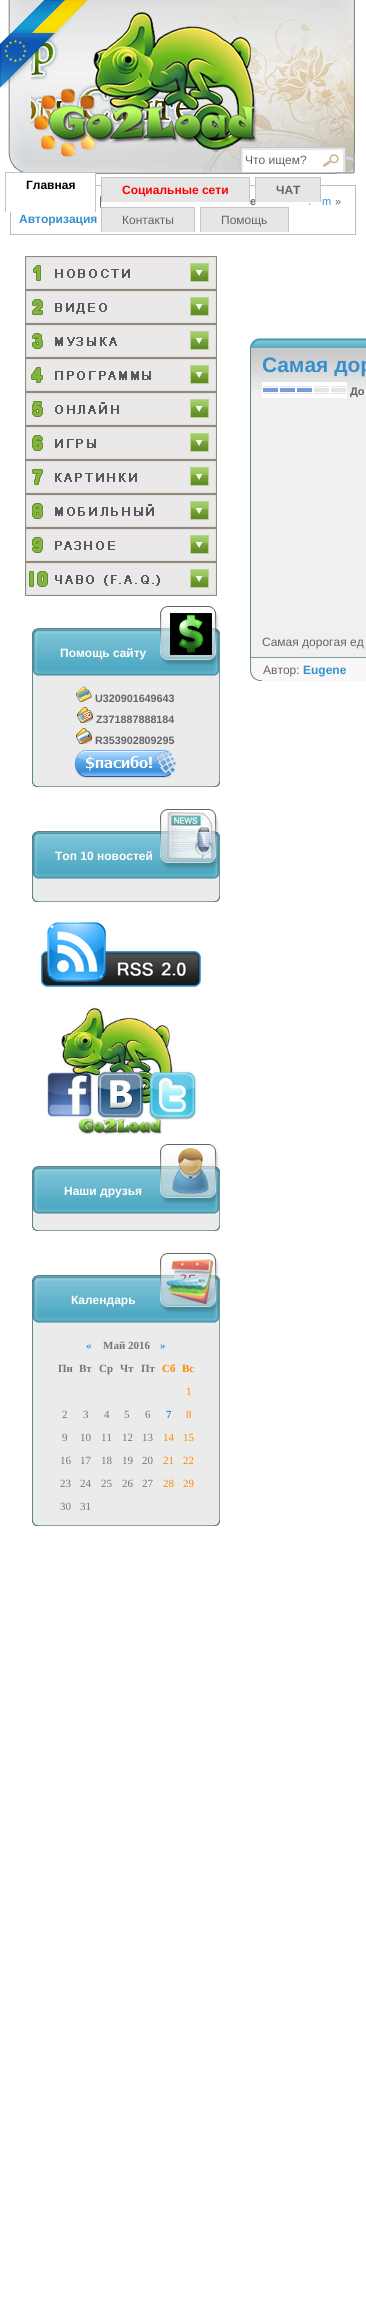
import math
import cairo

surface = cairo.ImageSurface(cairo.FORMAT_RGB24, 366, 2318)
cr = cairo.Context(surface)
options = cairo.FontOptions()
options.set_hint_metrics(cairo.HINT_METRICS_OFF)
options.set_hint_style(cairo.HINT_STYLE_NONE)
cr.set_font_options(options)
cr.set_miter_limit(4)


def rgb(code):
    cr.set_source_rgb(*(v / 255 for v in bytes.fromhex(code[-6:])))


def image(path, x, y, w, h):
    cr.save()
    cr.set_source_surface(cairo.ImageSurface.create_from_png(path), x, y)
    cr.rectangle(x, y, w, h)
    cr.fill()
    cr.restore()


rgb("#ffffff")
cr.paint()
image("img/1.png", 31, 0, 335, 174)
image("img/2.png", 0, 0, 31, 174)
for x, y, w, h, color in [
    (241, 148, 104, 24, "#e6e6e6"),
    (240, 147, 106, 1, "#c8c8c8"),
    (345, 147, 1, 25, "#c8c8c8"),
    (240, 147, 1, 25, "#c8c8c8"),
    (243, 150, 100, 22, "#ffffff"),
]:
    rgb(color)
    cr.rectangle(x, y, w, h)
    cr.fill()
image("img/5.png", 323, 154, 16, 13)
cr.rectangle(10.5, 185.5, 345, 49)
rgb("#bebebe")
cr.set_line_width(1)
cr.stroke()
for x, y, w, h, color in [
    (10, 173, 85, 39, "#ffffff"),
    (5, 172, 91, 1, "#c5c5c5"),
    (95, 172, 1, 40, "#c5c5c5"),
    (5, 172, 1, 40, "#c5c5c5"),
    (102, 178, 147, 24, "#e6e6e6"),
    (101, 177, 149, 1, "#c5c5c5"),
    (101, 177, 1, 25, "#c5c5c5"),
    (256, 178, 64, 24, "#e6e6e6"),
    (255, 177, 66, 1, "#c5c5c5"),
    (320, 177, 1, 25, "#c5c5c5"),
    (102, 208, 92, 24, "#e6e6e6"),
    (101, 207, 94, 1, "#c5c5c5"),
    (194, 207, 1, 25, "#c5c5c5"),
    (101, 207, 1, 25, "#c5c5c5"),
    (201, 208, 87, 24, "#e6e6e6"),
    (200, 207, 89, 1, "#c5c5c5"),
    (288, 207, 1, 25, "#c5c5c5"),
    (200, 207, 1, 25, "#c5c5c5"),
]:
    rgb(color)
    cr.rectangle(x, y, w, h)
    cr.fill()
image("img/6.png", 250, 338, 11, 10)
image("img/7.png", 261, 338, 105, 10)
rgb("#f0f0f0")
cr.rectangle(251, 348, 115, 309)
cr.fill()
image("img/8.png", 251, 348, 115, 42)
rgb("#829ca3")
cr.rectangle(250, 657, 116, 1)
cr.fill()
rgb("#62848d")
cr.rectangle(250, 348, 1, 310)
cr.fill()
image("img/9.png", 262, 382, 85, 16)
image("img/10.png", 263, 388, 49, 4)
image("img/11.png", 250, 658, 12, 23)
rgb("#f8f8f8")
cr.rectangle(262, 658, 104, 23)
cr.fill()
cr.rectangle(25.5, 256.5, 191, 33)
rgb("#998675")
cr.stroke()
image("img/12.png", 26, 257, 190, 32)
cr.rectangle(25.5, 290.5, 191, 33)
cr.stroke()
image("img/13.png", 26, 291, 190, 32)
cr.rectangle(25.5, 324.5, 191, 33)
cr.stroke()
image("img/14.png", 26, 325, 190, 32)
cr.rectangle(25.5, 358.5, 191, 33)
cr.stroke()
image("img/15.png", 26, 359, 190, 32)
cr.rectangle(25.5, 392.5, 191, 33)
cr.stroke()
image("img/16.png", 26, 393, 190, 32)
cr.rectangle(25.5, 426.5, 191, 33)
cr.stroke()
image("img/17.png", 26, 427, 190, 32)
cr.rectangle(25.5, 460.5, 191, 33)
cr.stroke()
image("img/18.png", 26, 461, 190, 32)
cr.rectangle(25.5, 494.5, 191, 33)
cr.stroke()
image("img/19.png", 26, 495, 190, 32)
cr.rectangle(25.5, 528.5, 191, 33)
cr.stroke()
image("img/20.png", 26, 529, 190, 32)
cr.rectangle(25.5, 562.5, 191, 33)
cr.stroke()
image("img/21.png", 26, 563, 190, 32)
image("img/22.png", 32, 606, 188, 75)
image("img/23.png", 170, 613, 42, 42)
for x, y, w, h, color in [
    (33, 681, 186, 99, "#ecebeb"),
    (219, 681, 1, 99, "#829ca3"),
    (32, 681, 1, 99, "#62848d"),
]:
    rgb(color)
    cr.rectangle(x, y, w, h)
    cr.fill()
image("img/24.png", 76, 686, 16, 16)
image("img/25.png", 77, 707, 16, 16)
image("img/26.png", 76, 728, 16, 16)
image("img/27.png", 74, 750, 102, 28)
image("img/28.png", 32, 780, 188, 7)
image("img/22.png", 32, 809, 188, 75)
image("img/29.png", 167, 812, 47, 48)
for x, y, w, h, color in [
    (33, 884, 186, 11, "#ecebeb"),
    (219, 884, 1, 11, "#829ca3"),
    (32, 884, 1, 11, "#62848d"),
]:
    rgb(color)
    cr.rectangle(x, y, w, h)
    cr.fill()
image("img/28.png", 32, 895, 188, 7)
image("img/30.png", 41, 922, 160, 65)
image("img/31.png", 47, 1007, 152, 128)
image("img/22.png", 32, 1144, 188, 75)
image("img/32.png", 172, 1148, 37, 46)
for x, y, w, h, color in [
    (32, 1219, 188, 5, "#ecebeb"),
    (219, 1219, 1, 5, "#829ca3"),
    (32, 1219, 1, 5, "#62848d"),
]:
    rgb(color)
    cr.rectangle(x, y, w, h)
    cr.fill()
image("img/28.png", 32, 1224, 188, 7)
image("img/22.png", 32, 1253, 188, 75)
image("img/33.png", 166, 1259, 50, 46)
for x, y, w, h, color in [
    (33, 1328, 186, 191, "#ecebeb"),
    (219, 1328, 1, 191, "#829ca3"),
    (32, 1328, 1, 191, "#62848d"),
]:
    rgb(color)
    cr.rectangle(x, y, w, h)
    cr.fill()
image("img/28.png", 32, 1519, 188, 7)
cr.select_font_face("Liberation Sans")
cr.set_font_size(12)
rgb("#646464")
cr.move_to(245, 164)
cr.show_text("Что ищем?")
image("img/4.png", 33, 11, 225, 148)
image("img/3.png", 0, 0, 88, 88)
cr.select_font_face("Liberation Sans", cairo.FONT_SLANT_NORMAL, cairo.FONT_WEIGHT_BOLD)
rgb("#000000")
cr.move_to(26, 189)
cr.show_text("Главная")
rgb("#ff0000")
cr.move_to(122, 194)
cr.show_text("Социальные сети")
rgb("#646464")
cr.move_to(276, 194)
cr.show_text("ЧАТ")
cr.select_font_face("Liberation Sans")
for x, y, s in [
    (122, 224, "Контакты"),
    (221, 224, "Помощь"),
    (99, 205, "|"),
]:
    cr.move_to(x, y)
    cr.show_text(s)
cr.select_font_face("Liberation Sans", cairo.FONT_SLANT_NORMAL, cairo.FONT_WEIGHT_BOLD)
rgb("#3690ce")
cr.move_to(19, 223)
cr.show_text("Авторизация")
cr.set_font_size(11)
rgb("#646464")
cr.move_to(250, 205)
cr.show_text("е")
rgb("#c5c5c5")
cr.rectangle(255, 177, 1, 25)
cr.fill()
cr.rectangle(249, 177, 1, 25)
cr.fill()
cr.select_font_face("Liberation Sans")
rgb("#3690ce")
cr.move_to(308, 205)
cr.show_text(".")
cr.move_to(322, 205)
cr.show_text("m")
rgb("#646464")
cr.move_to(335, 205)
cr.show_text("»")
cr.select_font_face("Liberation Sans", cairo.FONT_SLANT_NORMAL, cairo.FONT_WEIGHT_BOLD)
cr.set_font_size(21)
rgb("#3690ce")
cr.move_to(262, 372)
cr.show_text("Самая дор")
cr.set_font_size(11)
rgb("#646464")
cr.move_to(350, 395)
cr.show_text("До")
cr.select_font_face("Liberation Sans")
cr.set_font_size(12)
cr.move_to(262, 646)
cr.show_text("Самая дорогая ед")
cr.move_to(263, 674)
cr.show_text("Автор:")
cr.select_font_face("Liberation Sans", cairo.FONT_SLANT_NORMAL, cairo.FONT_WEIGHT_BOLD)
rgb("#3690ce")
cr.move_to(303, 674)
cr.show_text("Eugene")
rgb("#ffffff")
cr.move_to(60, 657)
cr.show_text("Помощь сайту")
cr.set_font_size(10.75)
rgb("#646464")
for x, y, s in [
    (95, 702, "U320901649643"),
    (96, 723, "Z371887888184"),
    (95, 744, "R353902809295"),
]:
    cr.move_to(x, y)
    cr.show_text(s)
cr.set_font_size(12)
rgb("#ffffff")
for x, y, s in [
    (55, 860, "Топ 10 новостей"),
    (64, 1195, "Наши друзья"),
    (71, 1304, "Календарь"),
]:
    cr.move_to(x, y)
    cr.show_text(s)
cr.select_font_face("Liberation Serif", cairo.FONT_SLANT_NORMAL, cairo.FONT_WEIGHT_BOLD)
cr.set_font_size(11)
rgb("#3690ce")
cr.move_to(86, 1349)
cr.show_text("«")
rgb("#757575")
cr.move_to(103, 1349)
cr.show_text("Май 2016")
rgb("#3690ce")
cr.move_to(160, 1349)
cr.show_text("»")
rgb("#757575")
for x, y, s in [
    (58, 1372, "Пн"),
    (79, 1372, "Вт"),
    (99, 1372, "Ср"),
    (120, 1372, "Чт"),
    (141, 1372, "Пт"),
]:
    cr.move_to(x, y)
    cr.show_text(s)
rgb("#ff8700")
cr.move_to(162, 1372)
cr.show_text("Сб")
cr.move_to(182, 1372)
cr.show_text("Вс")
cr.select_font_face("Liberation Serif")
cr.move_to(186, 1395)
cr.show_text("1")
rgb("#757575")
for x, y, s in [
    (62, 1418, "2"),
    (83, 1418, "3"),
    (104, 1418, "4"),
    (124, 1418, "5"),
    (145, 1418, "6"),
]:
    cr.move_to(x, y)
    cr.show_text(s)
cr.select_font_face("Liberation Serif", cairo.FONT_SLANT_NORMAL, cairo.FONT_WEIGHT_BOLD)
rgb("#3690ce")
cr.move_to(166, 1418)
cr.show_text("7")
cr.select_font_face("Liberation Serif")
rgb("#ff8700")
cr.move_to(186, 1418)
cr.show_text("8")
rgb("#757575")
for x, y, s in [
    (62, 1441, "9"),
    (80, 1441, "10"),
    (101, 1441, "11"),
    (122, 1441, "12"),
    (142, 1441, "13"),
]:
    cr.move_to(x, y)
    cr.show_text(s)
rgb("#ff8700")
cr.move_to(163, 1441)
cr.show_text("14")
cr.move_to(183, 1441)
cr.show_text("15")
rgb("#757575")
for x, y, s in [
    (60, 1464, "16"),
    (80, 1464, "17"),
    (101, 1464, "18"),
    (122, 1464, "19"),
    (142, 1464, "20"),
]:
    cr.move_to(x, y)
    cr.show_text(s)
rgb("#ff8700")
cr.move_to(163, 1464)
cr.show_text("21")
cr.move_to(183, 1464)
cr.show_text("22")
rgb("#757575")
for x, y, s in [
    (60, 1487, "23"),
    (80, 1487, "24"),
    (101, 1487, "25"),
    (122, 1487, "26"),
    (142, 1487, "27"),
]:
    cr.move_to(x, y)
    cr.show_text(s)
rgb("#ff8700")
cr.move_to(163, 1487)
cr.show_text("28")
cr.move_to(183, 1487)
cr.show_text("29")
rgb("#757575")
cr.move_to(60, 1510)
cr.show_text("30")
cr.move_to(80, 1510)
cr.show_text("31")
surface.write_to_png("page.png")
